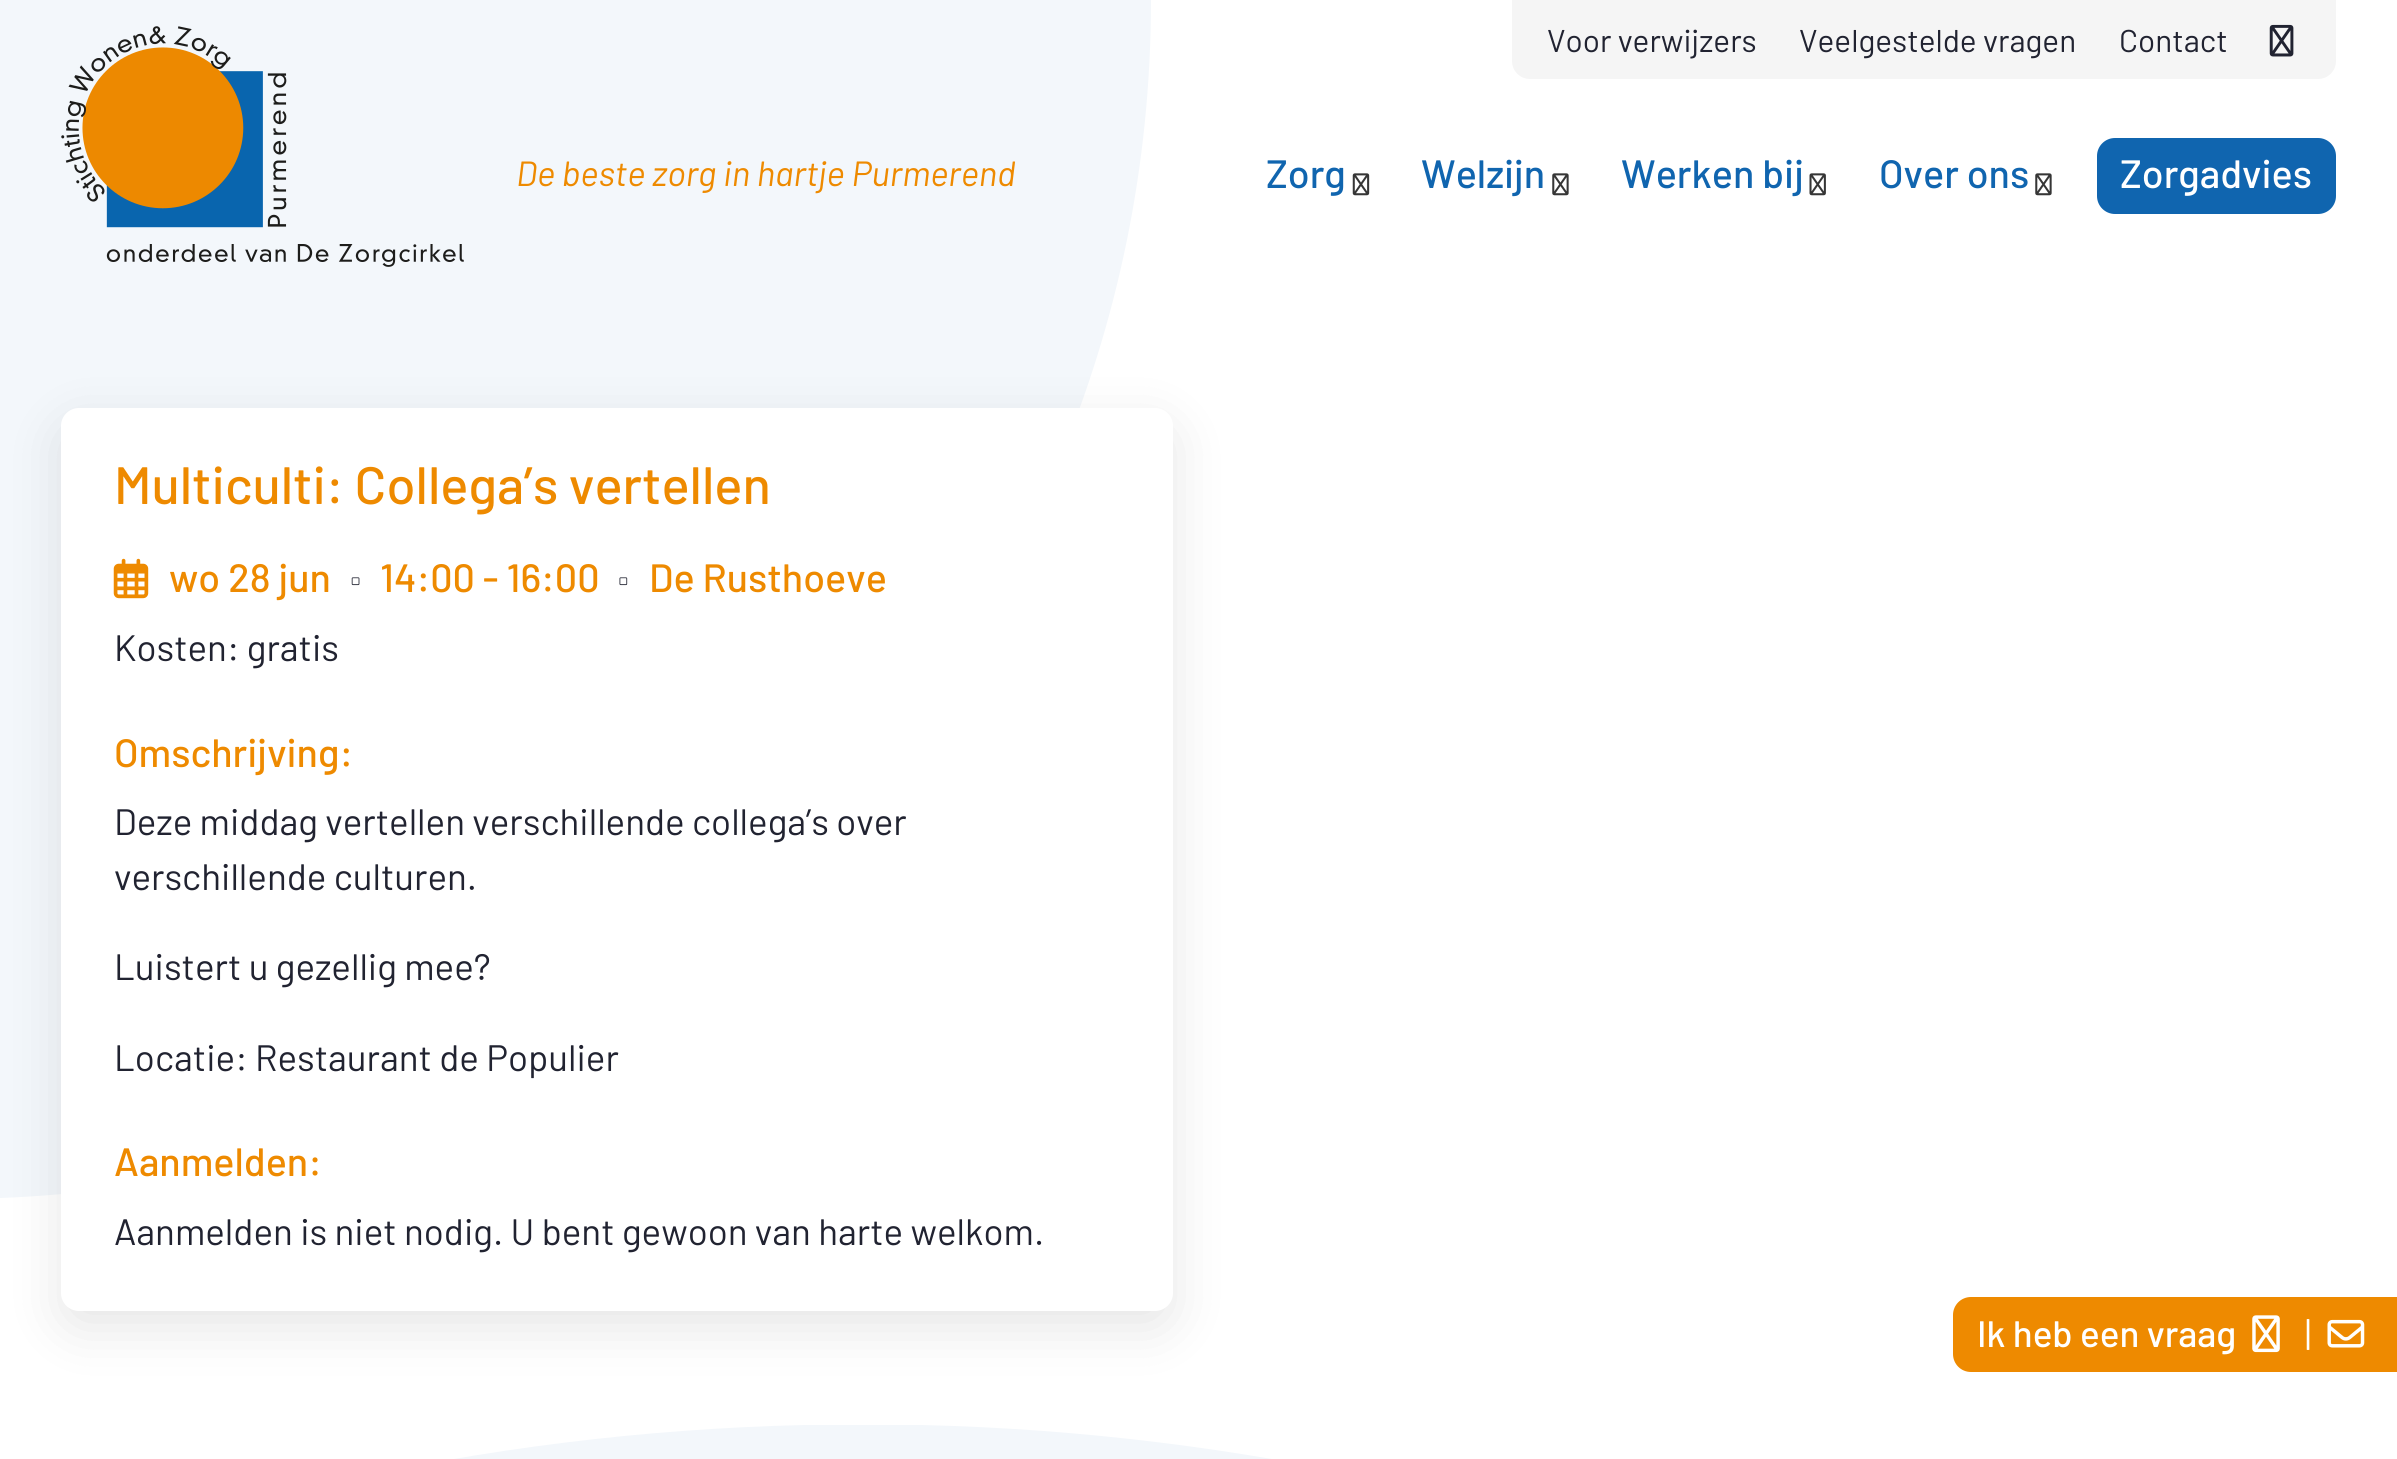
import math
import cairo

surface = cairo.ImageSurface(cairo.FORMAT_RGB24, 2397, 1459)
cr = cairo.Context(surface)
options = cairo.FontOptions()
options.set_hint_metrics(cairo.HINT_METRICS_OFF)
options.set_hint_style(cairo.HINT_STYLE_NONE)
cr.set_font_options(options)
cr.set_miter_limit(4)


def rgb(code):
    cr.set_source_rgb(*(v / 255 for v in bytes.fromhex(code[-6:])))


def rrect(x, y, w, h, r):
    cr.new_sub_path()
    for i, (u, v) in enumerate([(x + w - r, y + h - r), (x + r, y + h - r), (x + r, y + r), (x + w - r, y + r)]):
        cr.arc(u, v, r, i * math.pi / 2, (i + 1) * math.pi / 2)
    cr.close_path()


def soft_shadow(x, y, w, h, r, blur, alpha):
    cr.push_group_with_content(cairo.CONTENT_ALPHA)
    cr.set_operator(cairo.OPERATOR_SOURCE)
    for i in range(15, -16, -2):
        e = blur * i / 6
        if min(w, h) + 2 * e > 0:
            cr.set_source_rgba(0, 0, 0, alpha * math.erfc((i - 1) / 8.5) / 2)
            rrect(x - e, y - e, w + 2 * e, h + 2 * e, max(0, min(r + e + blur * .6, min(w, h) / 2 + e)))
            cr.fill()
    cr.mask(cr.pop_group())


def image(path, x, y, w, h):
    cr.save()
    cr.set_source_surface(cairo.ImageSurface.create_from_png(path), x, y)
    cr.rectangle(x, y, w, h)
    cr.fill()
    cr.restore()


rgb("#ffffff")
cr.paint()
rgb("#f3f7fb")
cr.new_path()
cr.move_to(-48, -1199)
cr.curve_to(614, -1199, 1151, -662, 1151, 0)
cr.curve_to(1151, 662, 614, 1199, -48, 1199)
cr.curve_to(-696, 1199, -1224, 684, -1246, 41)
cr.line_to(-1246, -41)
cr.curve_to(-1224, -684, -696, -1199, -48, -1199)
cr.close_path()
cr.fill()
image("img/1.png", 61, 26, 403, 241)
rgb("#f5f5f5")
cr.new_path()
cr.move_to(1512, 0)
cr.line_to(2336, 0)
cr.line_to(2336, 61)
cr.curve_to(2336, 71, 2328, 79, 2318, 79)
cr.line_to(1530, 79)
cr.curve_to(1520, 79, 1512, 71, 1512, 61)
cr.close_path()
cr.fill()
image("img/2.png", 2269, 24, 25, 33)
image("img/3.png", 1352, 173, 18, 23)
image("img/4.png", 1552, 173, 17, 23)
image("img/5.png", 1809, 173, 17, 23)
image("img/4.png", 2035, 173, 17, 23)
rgb("#1065af")
rrect(2097, 138, 239, 76, 18)
cr.fill()
rgb("#000000")
soft_shadow(61, 425, 1112, 903, 18, 26, 0.1)
rgb("#ffffff")
rrect(61, 408, 1112, 903, 18)
cr.fill()
image("img/6.png", 113, 558, 36, 41)
image("img/7.png", 351, 577, 9, 9)
image("img/8.png", 619, 577, 9, 9)
rgb("#ee8a00")
cr.new_path()
cr.move_to(1971, 1297)
cr.line_to(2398, 1297)
cr.line_to(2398, 1372)
cr.line_to(1971, 1372)
cr.curve_to(1961, 1372, 1953, 1364, 1953, 1354)
cr.line_to(1953, 1315)
cr.curve_to(1953, 1305, 1961, 1297, 1971, 1297)
cr.close_path()
cr.fill()
image("img/9.png", 2252, 1315, 28, 38)
image("img/10.png", 2327, 1319, 38, 29)
rgb("#f3f7fb")
cr.new_path()
cr.move_to(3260, 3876)
cr.curve_to(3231, 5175, 2169, 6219, 863, 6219)
cr.curve_to(-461, 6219, -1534, 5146, -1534, 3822)
cr.curve_to(-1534, 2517, -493, 1456, 804, 1425)
cr.line_to(922, 1425)
cr.curve_to(2201, 1456, 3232, 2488, 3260, 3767)
cr.close_path()
cr.fill()
cr.select_font_face("Barlow", cairo.FONT_SLANT_ITALIC)
cr.set_font_size(35)
rgb("#ee8a00")
cr.move_to(516, 186)
cr.show_text("De beste zorg in hartje Purmerend")
cr.select_font_face("Barlow")
cr.set_font_size(31.5)
rgb("#212331")
for x, y, s in [
    (1547, 52, "Voor verwijzers"),
    (1799, 52, "Veelgestelde vragen"),
    (2119, 52, "Contact"),
]:
    cr.move_to(x, y)
    cr.show_text(s)
cr.select_font_face("Barlow Medium")
cr.set_font_size(39.5)
rgb("#1065af")
for x, y, s in [
    (1266, 188, "Zorg"),
    (1421, 188, "Welzijn"),
    (1621, 188, "Werken bij"),
    (1879, 188, "Over ons"),
]:
    cr.move_to(x, y)
    cr.show_text(s)
rgb("#ffffff")
cr.move_to(2120, 188)
cr.show_text("Zorgadvies")
cr.set_font_size(52.5)
rgb("#ee8a00")
cr.move_to(114, 504)
cr.show_text("Multiculti: Collega’s vertellen")
cr.set_font_size(39.5)
for x, y, s in [
    (169, 592, "wo 28 jun"),
    (380, 592, "14:00 - 16:00"),
    (649, 592, "De Rusthoeve"),
]:
    cr.move_to(x, y)
    cr.show_text(s)
cr.select_font_face("Barlow")
cr.set_font_size(36.75)
rgb("#212331")
cr.move_to(114, 661)
cr.show_text("Kosten: gratis")
cr.select_font_face("Barlow Medium")
cr.set_font_size(39.5)
rgb("#ee8a00")
cr.move_to(114, 767)
cr.show_text("Omschrijving:")
cr.select_font_face("Barlow")
cr.set_font_size(36.75)
rgb("#212331")
for x, y, s in [
    (114, 835, "Deze middag vertellen verschillende collega’s over"),
    (114, 890, "verschillende culturen."),
    (114, 980, "Luistert u gezellig mee?"),
    (114, 1071, "Locatie: Restaurant de Populier"),
]:
    cr.move_to(x, y)
    cr.show_text(s)
cr.select_font_face("Barlow Medium")
cr.set_font_size(39.5)
rgb("#ee8a00")
cr.move_to(114, 1176)
cr.show_text("Aanmelden:")
cr.select_font_face("Barlow")
cr.set_font_size(36.75)
rgb("#212331")
cr.move_to(114, 1245)
cr.show_text("Aanmelden is niet nodig. U bent gewoon van harte welkom.")
cr.select_font_face("Barlow Medium")
rgb("#ffffff")
cr.move_to(1977, 1347)
cr.show_text("Ik heb een vraag")
cr.select_font_face("Barlow")
cr.move_to(2305, 1347)
cr.show_text("|")
surface.write_to_png("page.png")
